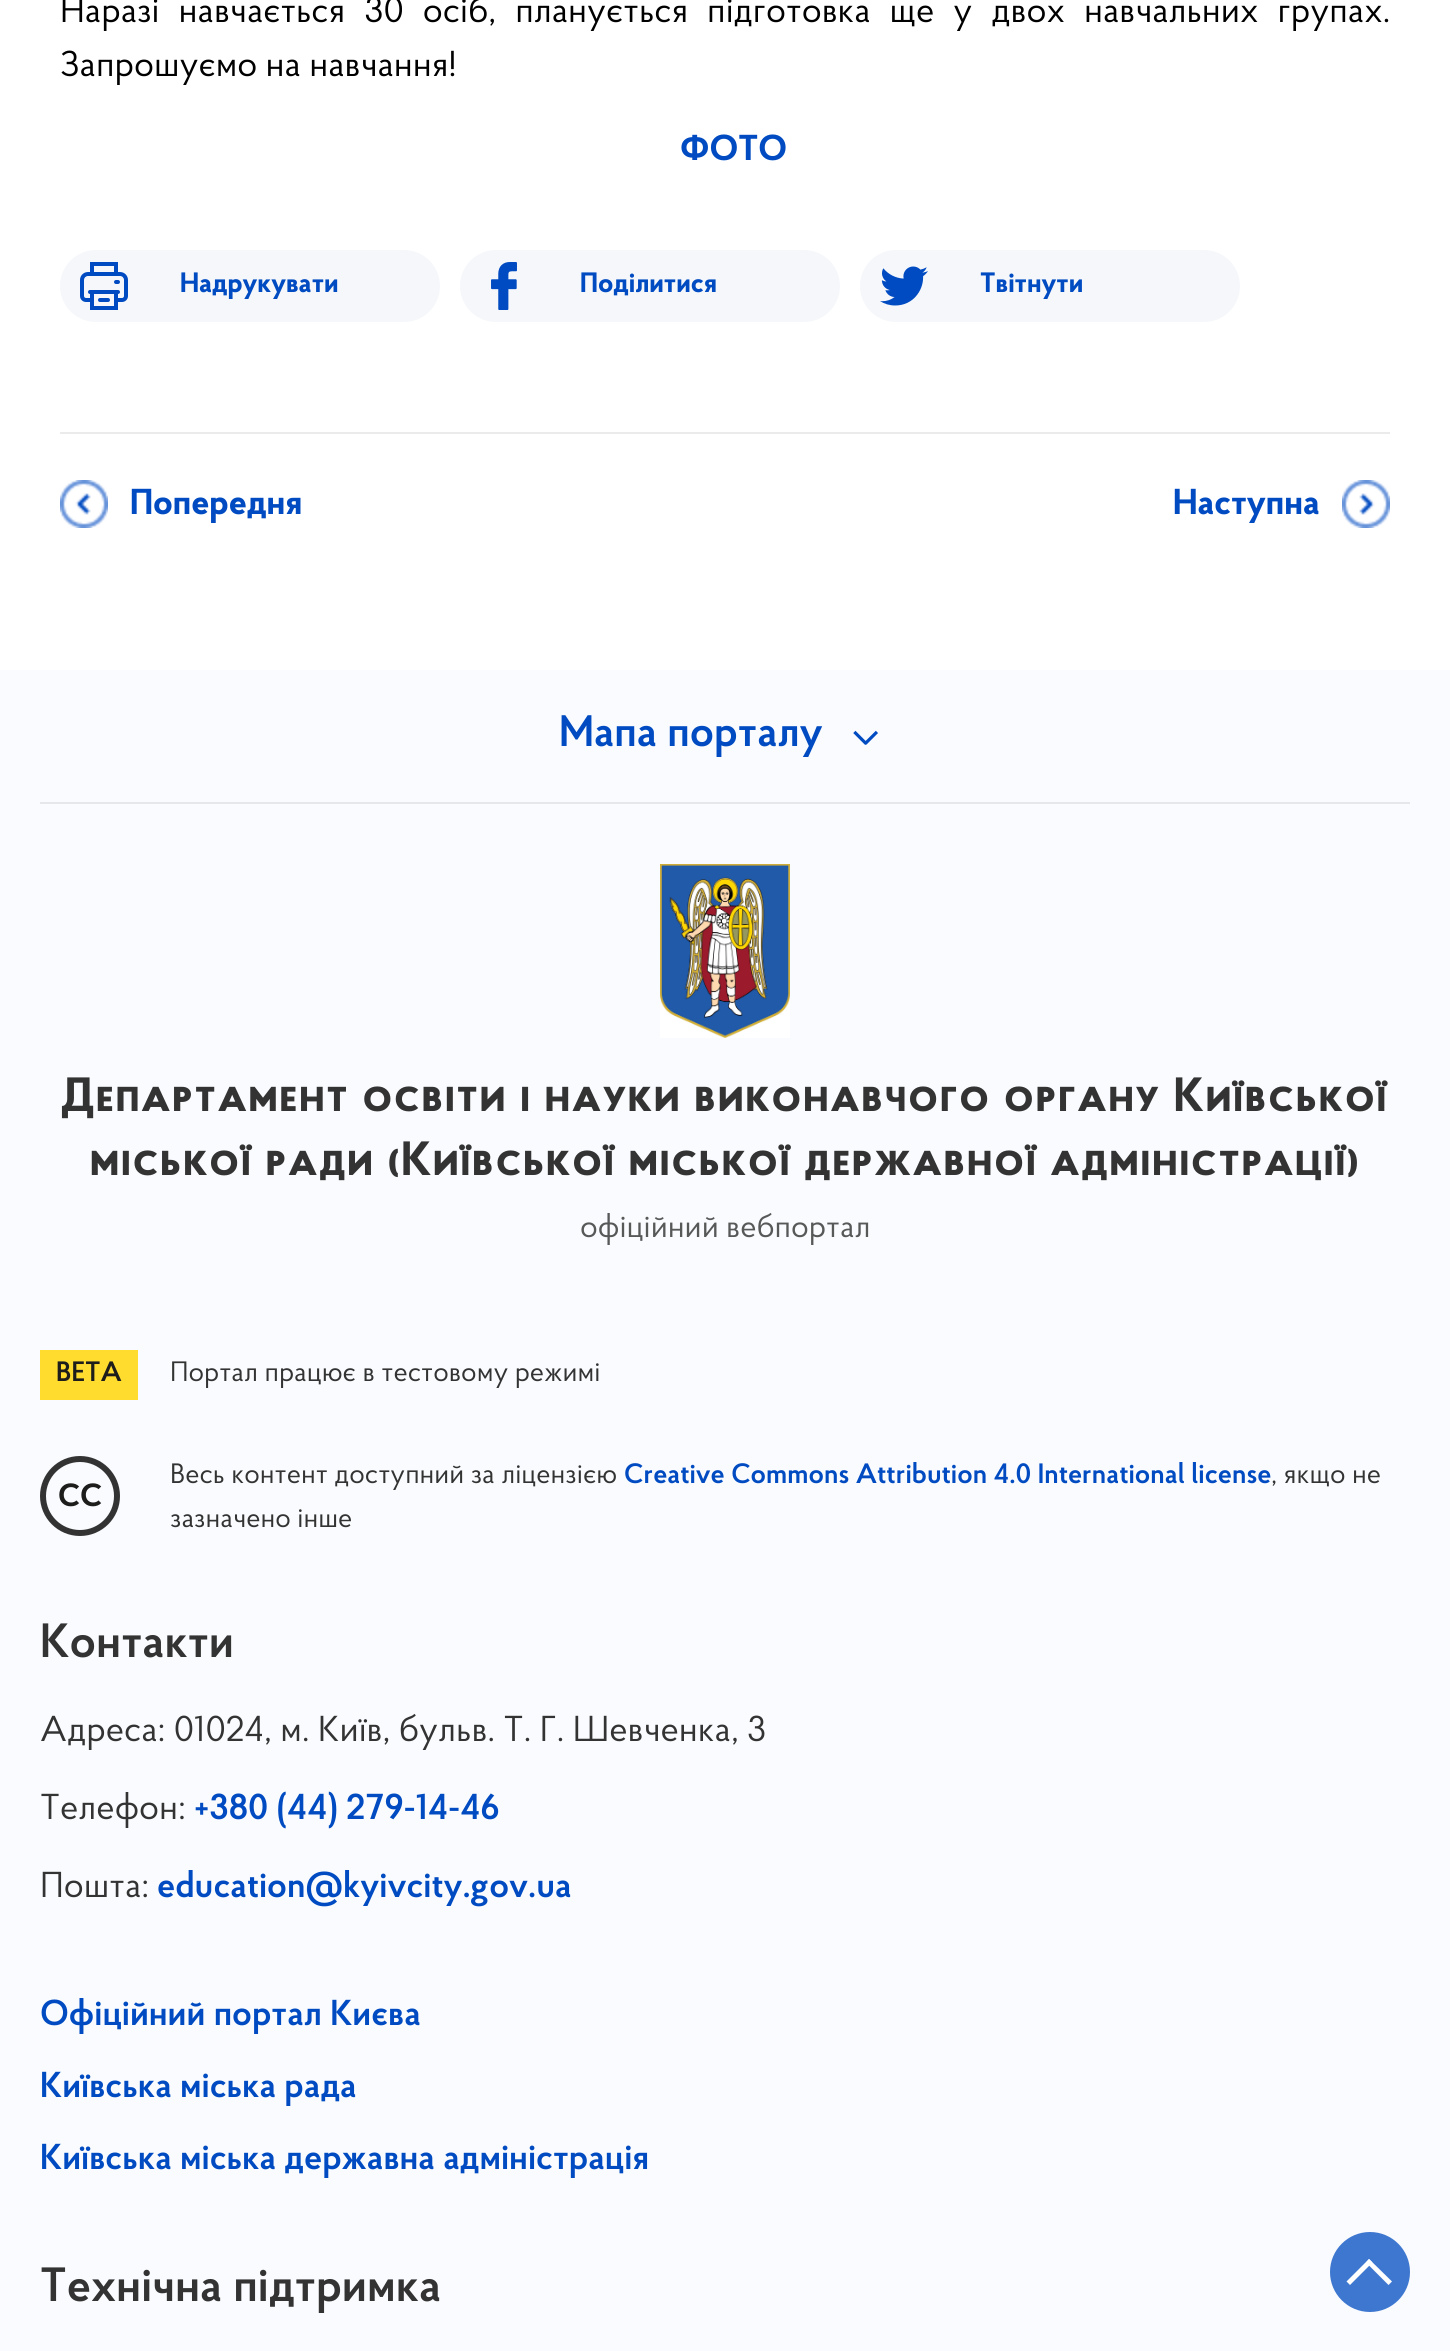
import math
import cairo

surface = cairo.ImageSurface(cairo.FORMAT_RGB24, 1450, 2351)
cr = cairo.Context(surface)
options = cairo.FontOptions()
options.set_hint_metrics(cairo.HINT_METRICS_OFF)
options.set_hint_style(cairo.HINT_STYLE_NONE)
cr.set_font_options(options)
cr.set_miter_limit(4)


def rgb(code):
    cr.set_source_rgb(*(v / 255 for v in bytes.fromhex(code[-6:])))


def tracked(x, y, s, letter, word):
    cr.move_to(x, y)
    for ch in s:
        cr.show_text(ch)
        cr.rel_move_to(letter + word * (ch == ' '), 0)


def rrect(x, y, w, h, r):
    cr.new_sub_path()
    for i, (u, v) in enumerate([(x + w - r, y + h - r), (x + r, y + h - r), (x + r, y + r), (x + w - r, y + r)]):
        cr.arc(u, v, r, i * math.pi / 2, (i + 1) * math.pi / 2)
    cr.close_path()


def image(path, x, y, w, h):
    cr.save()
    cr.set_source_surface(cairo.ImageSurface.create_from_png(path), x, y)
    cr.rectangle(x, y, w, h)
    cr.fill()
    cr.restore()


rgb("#ffffff")
cr.paint()
rgb("#f5f7fa")
rrect(60, 250, 380, 72, 36)
cr.fill()
image("img/1.png", 80, 262, 48, 48)
rrect(460, 250, 380, 72, 36)
cr.fill()
image("img/2.png", 491, 262, 26, 48)
rrect(860, 250, 380, 72, 36)
cr.fill()
image("img/3.png", 880, 266, 48, 40)
rgb("#ebebeb")
cr.rectangle(60, 432, 1330, 2)
cr.fill()
image("img/4.png", 60, 480, 48, 48)
image("img/5.png", 1342, 480, 48, 48)
rgb("#f9fbfe")
cr.rectangle(0, 670, 1450, 1681)
cr.fill()
image("img/6.png", 853, 730, 25, 15)
rgb("#e5e7ea")
cr.rectangle(40, 802, 1370, 2)
cr.fill()
image("img/7.png", 660, 864, 130, 174)
rgb("#ffdc2e")
cr.rectangle(40, 1350, 98, 50)
cr.fill()
cr.arc(80, 1496, 37, 0, 2 * math.pi)
rgb("#333333")
cr.set_line_width(6)
cr.stroke()
image("img/8.png", 59, 1483, 43, 24)
rgb("#3e77d0")
cr.arc(1370, 2272, 40, 0, 2 * math.pi)
cr.fill()
rgb("#ffffff")
cr.new_path()
cr.move_to(1366, 2262.5)
cr.line_to(1369, 2259)
cr.line_to(1392, 2281.5)
cr.line_to(1388.5, 2285)
cr.close_path()
cr.fill()
cr.new_path()
cr.move_to(1369, 2259)
cr.line_to(1372.5, 2262.5)
cr.line_to(1350, 2285)
cr.line_to(1346.5, 2281.5)
cr.close_path()
cr.fill()
cr.select_font_face("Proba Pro")
cr.set_font_size(36)
rgb("#000000")
tracked(60, 22, "Наразі навчається 30 осіб, планується підготовка ще у двох навчальних групах.", 0, 10.75)
cr.move_to(60, 76)
cr.show_text("Запрошуємо на навчання!")
cr.select_font_face("Proba Pro", cairo.FONT_SLANT_NORMAL, cairo.FONT_WEIGHT_BOLD)
rgb("#004bc1")
cr.move_to(680, 160)
cr.show_text("ФОТО")
cr.set_font_size(28)
for x, y, s in [
    (180, 292, "Надрукувати"),
    (580, 292, "Поділитися"),
    (980, 292, "Твітнути"),
]:
    cr.move_to(x, y)
    cr.show_text(s)
cr.set_font_size(36)
cr.move_to(130, 514)
cr.show_text("Попередня")
cr.move_to(1173, 514)
cr.show_text("Наступна")
cr.select_font_face("Proba Pro SemiBold")
cr.set_font_size(44)
cr.move_to(559, 746)
cr.show_text("Мапа порталу")
cr.select_font_face("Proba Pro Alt", cairo.FONT_SLANT_NORMAL, cairo.FONT_WEIGHT_BOLD)
cr.set_font_size(48)
rgb("#333333")
tracked(61, 1111, "Департамент освіти і науки виконавчого органу Київської", 2, 0)
tracked(90, 1175, "міської ради (Київської міської державної адміністрації)", 2, 0)
cr.select_font_face("Proba Pro")
cr.set_font_size(32)
rgb("#575858")
cr.move_to(580, 1237)
cr.show_text("офіційний вебпортал")
cr.select_font_face("Proba Pro SemiBold")
cr.set_font_size(28)
rgb("#1d1d1b")
cr.move_to(56, 1381)
cr.show_text("BETA")
cr.select_font_face("Proba Pro")
rgb("#333333")
cr.move_to(170, 1381)
cr.show_text("Портал працює в тестовому режимі")
cr.move_to(170, 1483)
cr.show_text("Весь контент доступний за ліцензією")
cr.select_font_face("Proba Pro SemiBold")
rgb("#004bc1")
cr.move_to(624, 1483)
cr.show_text("Creative Commons Attribution 4.0 International license")
cr.select_font_face("Proba Pro")
rgb("#333333")
cr.move_to(1271, 1483)
cr.show_text(", якщо не")
cr.move_to(170, 1527)
cr.show_text("зазначено інше")
cr.select_font_face("Proba Pro SemiBold")
cr.set_font_size(48)
cr.move_to(40, 1657)
cr.show_text("Контакти")
cr.select_font_face("Proba Pro")
cr.set_font_size(36)
cr.move_to(40, 1741)
cr.show_text("Адреса: 01024, м. Київ, бульв. Т. Г. Шевченка, 3")
cr.move_to(40, 1819)
cr.show_text("Телефон:")
cr.select_font_face("Proba Pro SemiBold")
rgb("#004bc1")
cr.move_to(194, 1819)
cr.show_text("+380 (44) 279-14-46")
cr.select_font_face("Proba Pro")
rgb("#333333")
cr.move_to(40, 1897)
cr.show_text("Пошта:")
cr.select_font_face("Proba Pro SemiBold")
rgb("#004bc1")
for x, y, s in [
    (157, 1897, "education@kyivcity.gov.ua"),
    (40, 2025, "Офіційний портал Києва"),
    (40, 2097, "Київська міська рада"),
    (40, 2169, "Київська міська державна адміністрація"),
]:
    cr.move_to(x, y)
    cr.show_text(s)
cr.set_font_size(48)
rgb("#333333")
cr.move_to(40, 2301)
cr.show_text("Технічна підтримка")
surface.write_to_png("page.png")
